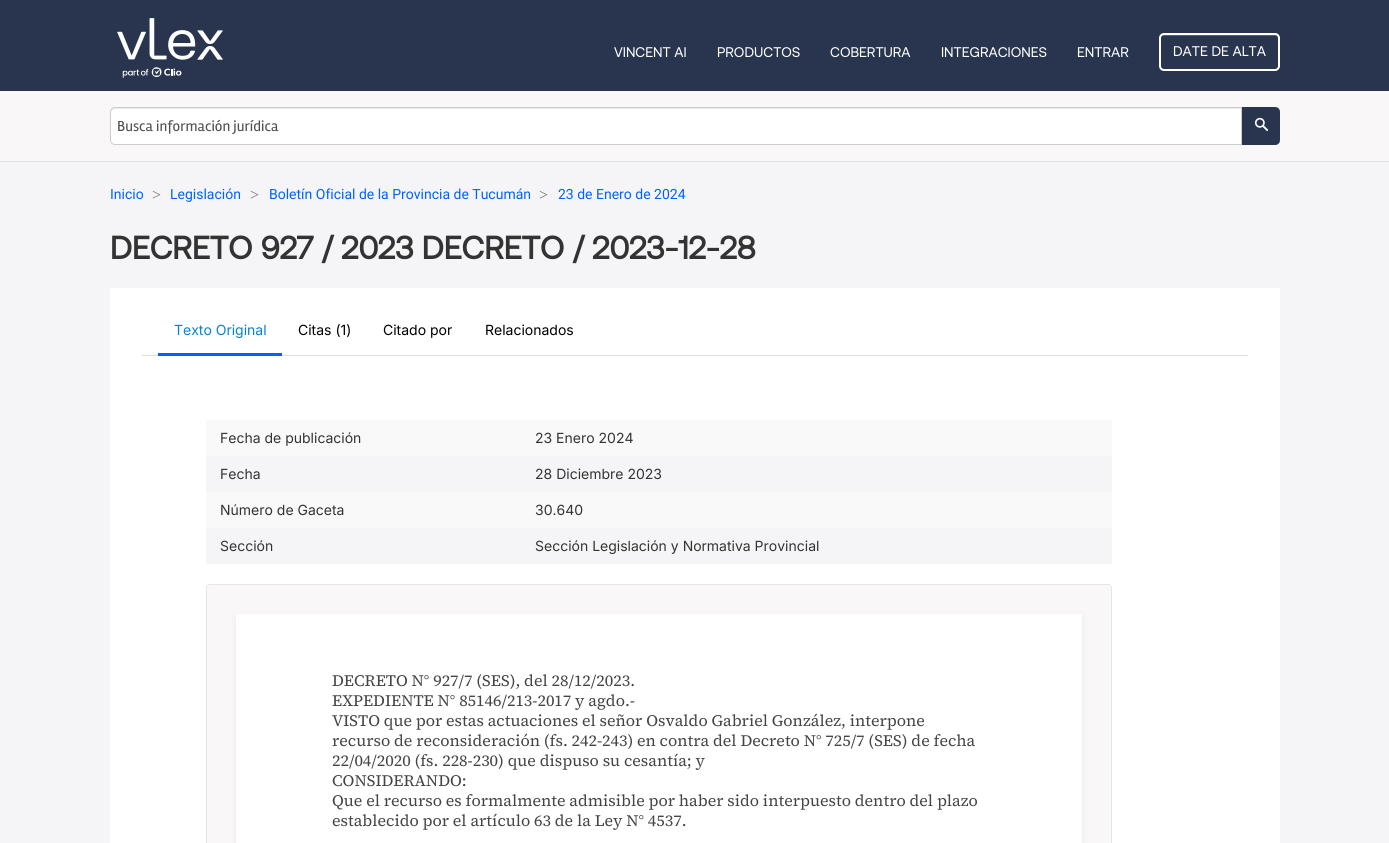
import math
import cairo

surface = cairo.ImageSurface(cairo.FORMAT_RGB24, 1389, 843)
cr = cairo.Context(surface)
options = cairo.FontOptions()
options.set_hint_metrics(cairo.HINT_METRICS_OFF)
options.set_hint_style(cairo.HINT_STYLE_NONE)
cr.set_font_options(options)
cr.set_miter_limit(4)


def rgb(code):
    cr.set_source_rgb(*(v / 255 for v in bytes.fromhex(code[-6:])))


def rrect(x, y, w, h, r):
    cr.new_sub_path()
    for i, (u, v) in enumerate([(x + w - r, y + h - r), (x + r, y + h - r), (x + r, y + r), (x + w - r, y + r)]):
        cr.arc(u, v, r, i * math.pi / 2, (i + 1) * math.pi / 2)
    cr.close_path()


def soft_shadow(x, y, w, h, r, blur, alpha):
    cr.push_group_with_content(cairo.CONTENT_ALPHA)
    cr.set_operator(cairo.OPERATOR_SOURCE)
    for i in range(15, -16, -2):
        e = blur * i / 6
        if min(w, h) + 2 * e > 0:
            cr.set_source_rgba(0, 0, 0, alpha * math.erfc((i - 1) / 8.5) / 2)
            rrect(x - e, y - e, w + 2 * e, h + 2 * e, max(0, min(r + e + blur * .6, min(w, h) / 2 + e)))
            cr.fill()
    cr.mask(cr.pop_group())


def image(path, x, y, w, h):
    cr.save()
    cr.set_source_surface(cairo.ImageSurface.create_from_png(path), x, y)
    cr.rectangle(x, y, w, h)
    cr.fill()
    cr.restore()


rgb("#f5f5f7")
cr.paint()
rgb("#29354e")
cr.rectangle(0, 0, 1389, 91)
cr.fill()
image("img/1.png", 117, 18, 106, 60)
rgb("#545d71")
cr.new_path()
cr.move_to(1164, 36)
cr.line_to(1275, 36)
cr.curve_to(1277, 36, 1278, 37, 1278, 39)
cr.curve_to(1278, 37, 1277, 35, 1275, 35)
cr.line_to(1182, 35)
cr.curve_to(1181, 35, 1161, 30, 1161, 39)
cr.curve_to(1161, 37, 1162, 36, 1164, 36)
cr.close_path()
cr.fill()
rrect(1160, 34, 119, 36, 4)
rgb("#ffffff")
cr.stroke()
rgb("#f9f7f7")
cr.rectangle(0, 91, 1389, 70)
cr.fill()
rgb("#e1e1e1")
cr.rectangle(0, 161, 1389, 1)
cr.fill()
rgb("#ffffff")
cr.new_path()
cr.move_to(115, 107)
cr.line_to(1242, 107)
cr.line_to(1242, 145)
cr.line_to(115, 145)
cr.curve_to(112, 145, 110, 143, 110, 140)
cr.line_to(110, 112)
cr.curve_to(110, 109, 112, 107, 115, 107)
cr.close_path()
cr.fill()
rgb("#ececec")
cr.new_path()
cr.move_to(115, 109)
cr.line_to(1241, 109)
cr.line_to(1241, 108)
cr.line_to(115, 108)
cr.curve_to(112, 108, 111, 110, 111, 113)
cr.curve_to(111, 111, 113, 109, 115, 109)
cr.close_path()
cr.fill()
cr.new_path()
cr.move_to(115, 107.5)
cr.line_to(1241.5, 107.5)
cr.line_to(1241.5, 144.5)
cr.line_to(115, 144.5)
cr.curve_to(112.5, 144.5, 110.5, 142.5, 110.5, 140)
cr.line_to(110.5, 112)
cr.curve_to(110.5, 109.5, 112.5, 107.5, 115, 107.5)
cr.close_path()
rgb("#cccccc")
cr.set_line_width(1)
cr.stroke()
rgb("#29354e")
cr.new_path()
cr.move_to(1242, 107)
cr.line_to(1275, 107)
cr.curve_to(1278, 107, 1280, 109, 1280, 112)
cr.line_to(1280, 140)
cr.curve_to(1280, 143, 1278, 145, 1275, 145)
cr.line_to(1242, 145)
cr.close_path()
cr.fill()
image("img/2.png", 1254, 117, 14, 14)
for x, y, w, h, color in [
    (110, 288, 1170, 555, "#ffffff"),
    (142, 355, 1106, 1, "#dddddd"),
    (158, 353, 124, 3, "#0161ff"),
    (206, 420, 906, 36, "#f9f9f9"),
    (206, 456, 906, 36, "#f5f5f7"),
    (206, 492, 906, 36, "#f9f9f9"),
    (206, 528, 906, 36, "#f5f5f7"),
]:
    rgb(color)
    cr.rectangle(x, y, w, h)
    cr.fill()
rgb("#f9f7f7")
cr.new_path()
cr.move_to(210, 584)
cr.line_to(1108, 584)
cr.curve_to(1110, 584, 1112, 586, 1112, 588)
cr.line_to(1112, 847)
cr.line_to(206, 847)
cr.line_to(206, 588)
cr.curve_to(206, 586, 208, 584, 210, 584)
cr.close_path()
cr.fill()
rgb("#e7e4e4")
cr.set_fill_rule(cairo.FILL_RULE_EVEN_ODD)
cr.new_path()
cr.move_to(210, 584)
cr.line_to(1108, 584)
cr.curve_to(1110, 584, 1112, 586, 1112, 588)
cr.line_to(1112, 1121)
cr.line_to(206, 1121)
cr.line_to(206, 588)
cr.curve_to(206, 586, 208, 584, 210, 584)
cr.close_path()
cr.move_to(210, 585)
cr.line_to(1108, 585)
cr.curve_to(1110, 585, 1111, 586, 1111, 588)
cr.line_to(1111, 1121)
cr.line_to(207, 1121)
cr.line_to(207, 588)
cr.curve_to(207, 586, 208, 585, 210, 585)
cr.close_path()
cr.fill()
rgb("#000000")
soft_shadow(236, 616, 846, 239, 0, 4, 0.06)
rgb("#ffffff")
cr.rectangle(236, 614, 846, 229)
cr.fill()
cr.select_font_face("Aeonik")
cr.set_font_size(14)
for x, y, s in [
    (614, 57, "VINCENT AI"),
    (717, 57, "PRODUCTOS"),
    (830, 57, "COBERTURA"),
    (941, 57, "INTEGRACIONES"),
    (1077, 57, "ENTRAR"),
    (1173, 56, "DATE DE ALTA"),
]:
    cr.move_to(x, y)
    cr.show_text(s)
cr.select_font_face("Rambla")
cr.set_font_size(15)
rgb("#505050")
cr.move_to(117, 131)
cr.show_text("Busca información jurídica")
cr.select_font_face("Roboto")
cr.set_font_size(14)
rgb("#0161ff")
cr.move_to(110, 199)
cr.show_text("Inicio")
cr.select_font_face("Liberation Serif")
cr.set_font_size(16)
rgb("#71717a")
cr.move_to(152, 200)
cr.show_text(">")
cr.select_font_face("Roboto")
cr.set_font_size(14)
rgb("#0161ff")
cr.move_to(170, 199)
cr.show_text("Legislación")
cr.select_font_face("Liberation Serif")
cr.set_font_size(16)
rgb("#71717a")
cr.move_to(250, 200)
cr.show_text(">")
cr.select_font_face("Roboto")
cr.set_font_size(14)
rgb("#0161ff")
cr.move_to(269, 199)
cr.show_text("Boletín Oficial de la Provincia de Tucumán")
cr.select_font_face("Liberation Serif")
cr.set_font_size(16)
rgb("#71717a")
cr.move_to(539, 200)
cr.show_text(">")
cr.select_font_face("Roboto")
cr.set_font_size(14)
rgb("#0161ff")
cr.move_to(558, 199)
cr.show_text("23 de Enero de 2024")
cr.select_font_face("Aeonik", cairo.FONT_SLANT_NORMAL, cairo.FONT_WEIGHT_BOLD)
cr.set_font_size(32)
rgb("#333333")
cr.move_to(110, 259)
cr.show_text("DECRETO 927 / 2023 DECRETO / 2023-12-28")
cr.select_font_face("Inter")
cr.set_font_size(14)
rgb("#0882cf")
cr.move_to(174, 335)
cr.show_text("Texto Original")
rgb("#000000")
for x, y, s in [
    (298, 335, "Citas (1)"),
    (383, 335, "Citado por"),
    (485, 335, "Relacionados"),
]:
    cr.move_to(x, y)
    cr.show_text(s)
rgb("#333333")
for x, y, s in [
    (220, 443, "Fecha de publicación"),
    (535, 443, "23 Enero 2024"),
    (220, 479, "Fecha"),
    (535, 479, "28 Diciembre 2023"),
    (220, 515, "Número de Gaceta"),
    (535, 515, "30.640"),
    (220, 551, "Sección"),
    (535, 551, "Sección Legislación y Normativa Provincial"),
]:
    cr.move_to(x, y)
    cr.show_text(s)
cr.select_font_face("Source Serif 4")
cr.set_font_size(16)
rgb("#464343")
for x, y, s in [
    (332, 686, "DECRETO N° 927/7 (SES), del 28/12/2023."),
    (332, 706, "EXPEDIENTE N° 85146/213-2017 y agdo.-"),
    (332, 726, "VISTO que por estas actuaciones el señor Osvaldo Gabriel González, interpone"),
    (332, 746, "recurso de reconsideración (fs. 242-243) en contra del Decreto N° 725/7 (SES) de fecha"),
    (332, 766, "22/04/2020 (fs. 228-230) que dispuso su cesantía; y"),
    (332, 786, "CONSIDERANDO:"),
    (332, 806, "Que el recurso es formalmente admisible por haber sido interpuesto dentro del plazo"),
    (332, 826, "establecido por el artículo 63 de la Ley N° 4537."),
]:
    cr.move_to(x, y)
    cr.show_text(s)
surface.write_to_png("page.png")
